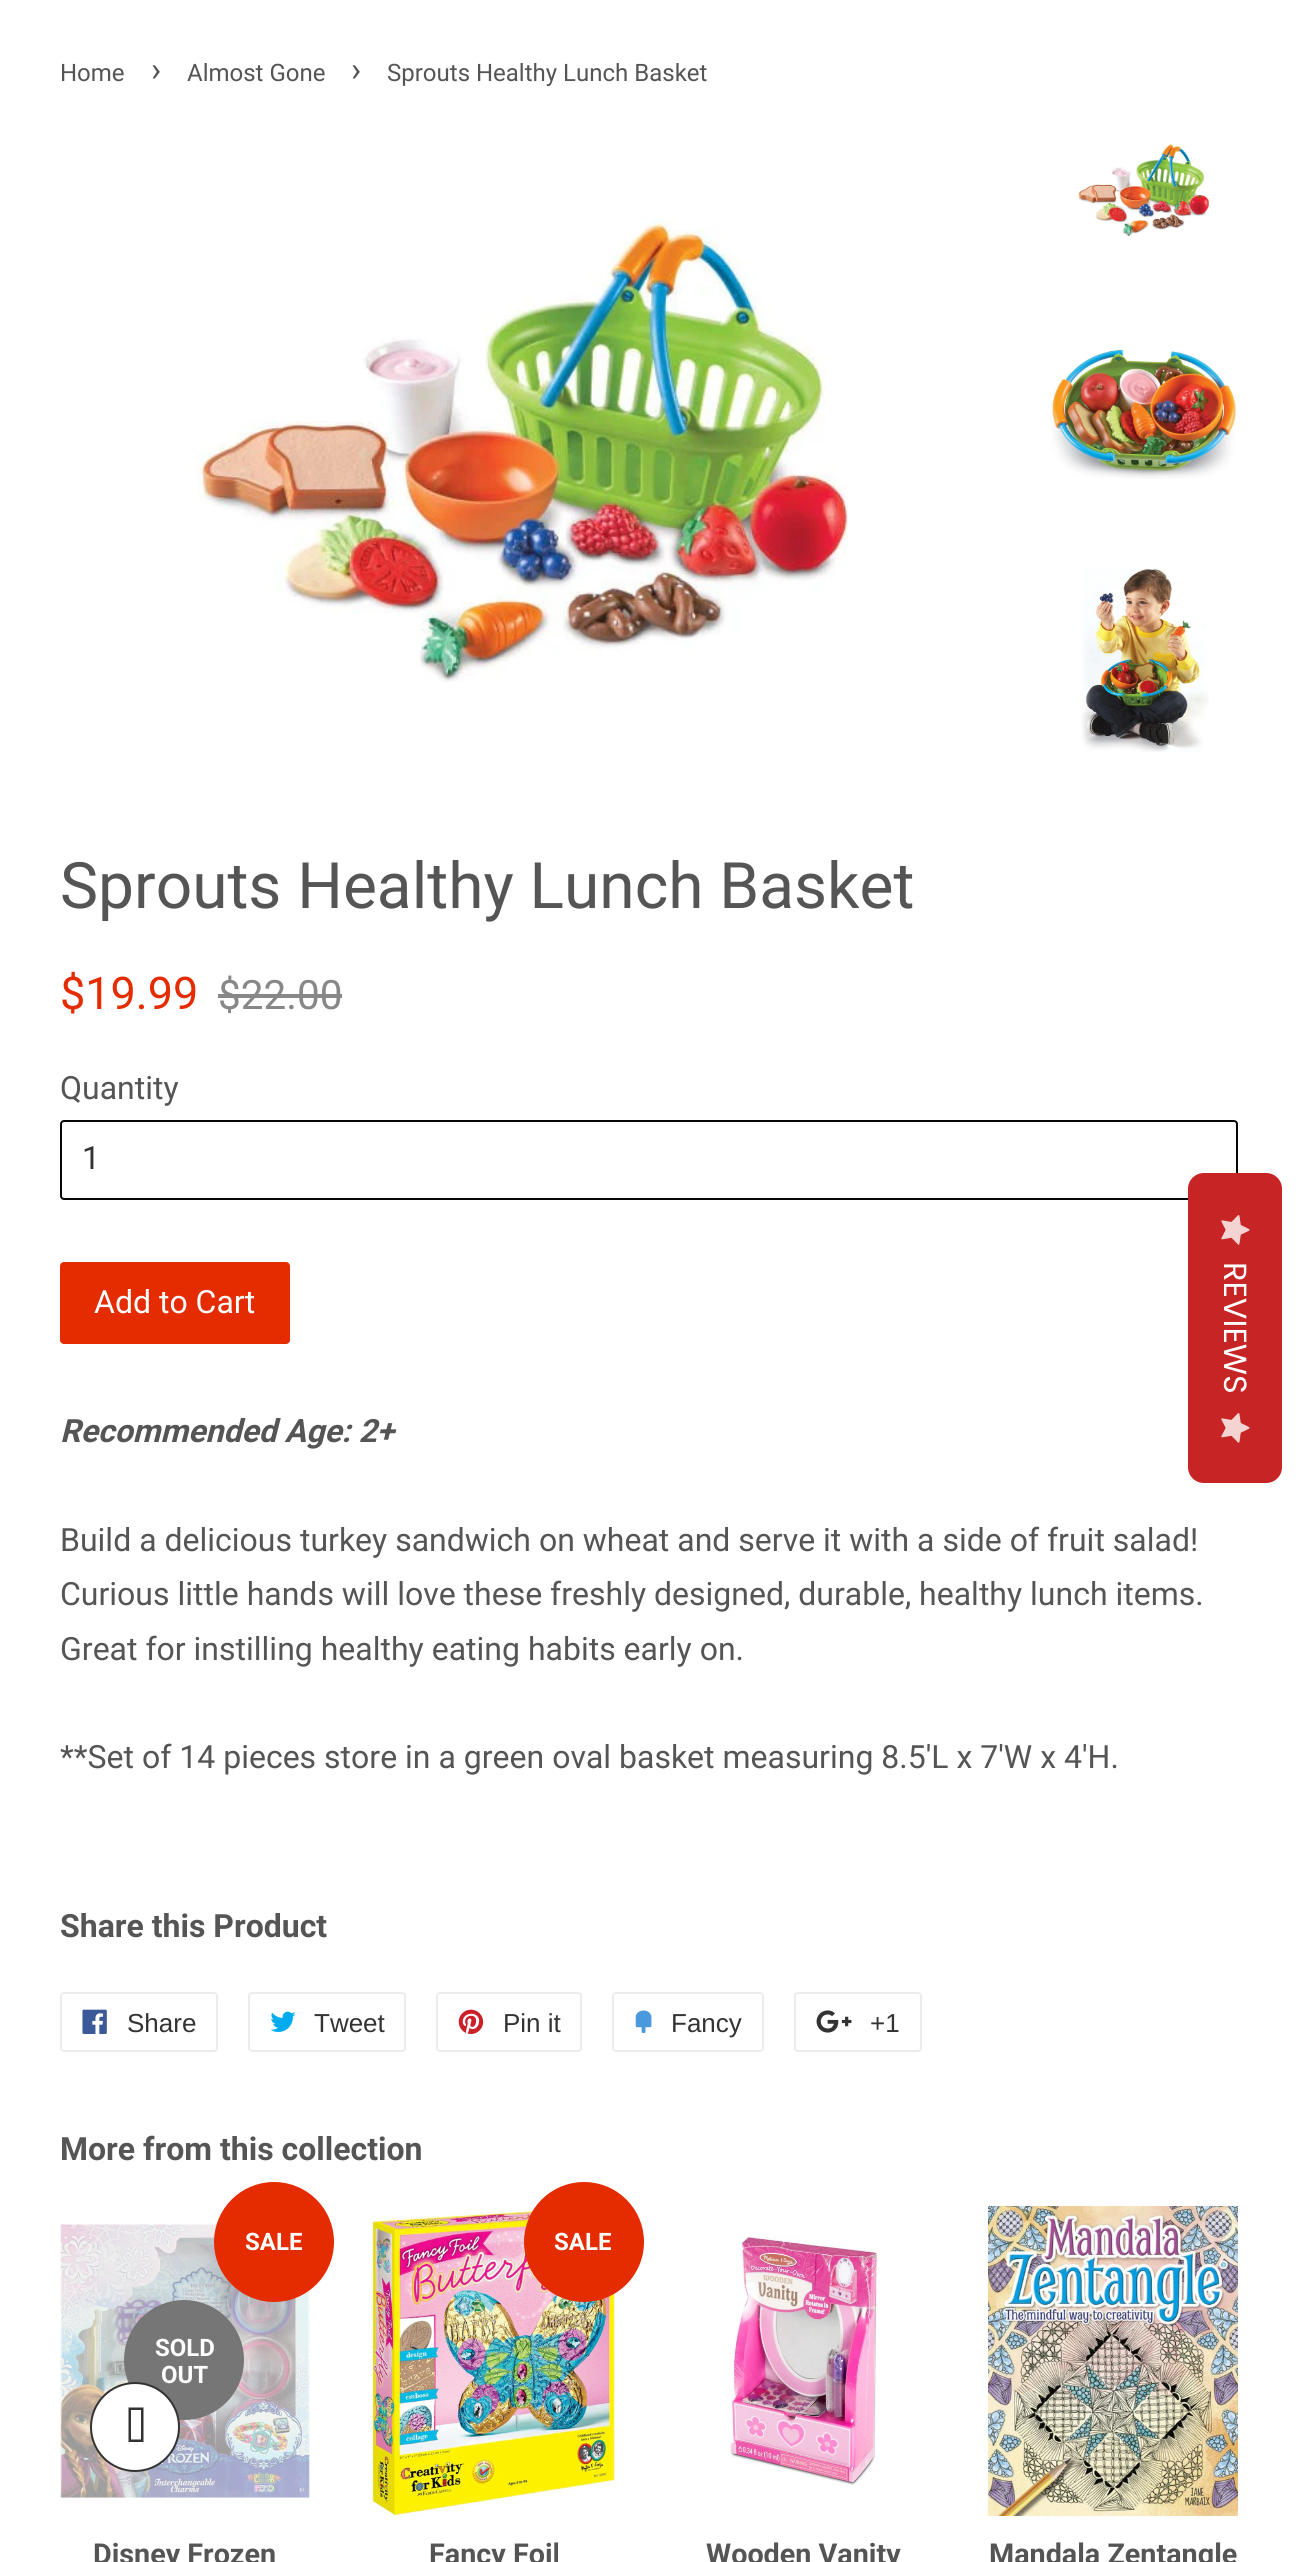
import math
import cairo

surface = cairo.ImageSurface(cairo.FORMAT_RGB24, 1298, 2562)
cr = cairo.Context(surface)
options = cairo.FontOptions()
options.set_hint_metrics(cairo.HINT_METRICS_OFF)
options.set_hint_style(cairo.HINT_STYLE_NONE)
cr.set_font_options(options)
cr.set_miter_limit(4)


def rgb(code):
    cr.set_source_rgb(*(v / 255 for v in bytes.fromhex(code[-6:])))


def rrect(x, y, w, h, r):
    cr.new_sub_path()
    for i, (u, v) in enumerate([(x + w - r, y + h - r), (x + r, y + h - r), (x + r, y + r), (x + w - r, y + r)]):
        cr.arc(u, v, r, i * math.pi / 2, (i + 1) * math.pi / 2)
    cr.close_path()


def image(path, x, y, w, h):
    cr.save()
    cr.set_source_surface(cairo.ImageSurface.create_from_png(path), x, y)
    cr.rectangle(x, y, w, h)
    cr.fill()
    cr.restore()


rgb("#ffffff")
cr.paint()
image("img/1.png", 190, 219, 658, 463)
image("img/2.png", 1078, 143, 132, 94)
image("img/3.png", 1050, 348, 187, 131)
image("img/4.png", 1081, 568, 128, 184)
rgb("#888888")
cr.rectangle(218, 994, 124, 4)
cr.fill()
rrect(61, 1121, 1176, 78, 3)
rgb("#060606")
cr.stroke()
rgb("#e42c00")
rrect(60, 1262, 230, 82, 4)
cr.fill()
rrect(61, 1993, 156, 58, 3)
rgb("#ececec")
cr.stroke()
image("img/5.png", 82, 2009, 25, 25)
rrect(249, 1993, 156, 58, 3)
cr.stroke()
image("img/6.png", 270, 2011, 26, 21)
rrect(437, 1993, 144, 58, 3)
cr.stroke()
image("img/7.png", 458, 2009, 26, 25)
rrect(613, 1993, 150, 58, 3)
cr.stroke()
image("img/8.png", 635, 2010, 17, 24)
rrect(795, 1993, 126, 58, 3)
cr.stroke()
image("img/9.png", 816, 2010, 36, 23)
image("img/10.png", 60, 2224, 250, 274)
rgb("#e42c00")
cr.arc(274, 2242, 60, 0, 2 * math.pi)
cr.fill()
rgb("#767676")
cr.arc(184, 2360, 60, 0, 2 * math.pi)
cr.fill()
image("img/11.png", 370, 2206, 246, 310)
rgb("#e42c00")
cr.arc(584, 2242, 60, 0, 2 * math.pi)
cr.fill()
image("img/12.png", 729, 2236, 150, 250)
image("img/13.png", 988, 2206, 250, 310)
rgb("#c72525")
cr.new_path()
cr.move_to(1282, 1189)
cr.line_to(1282, 1467)
cr.curve_to(1282, 1476, 1275, 1483, 1266, 1483)
cr.line_to(1204, 1483)
cr.curve_to(1195, 1483, 1188, 1476, 1188, 1467)
cr.line_to(1188, 1189)
cr.curve_to(1188, 1180, 1195, 1173, 1204, 1173)
cr.line_to(1266, 1173)
cr.curve_to(1275, 1173, 1282, 1180, 1282, 1189)
cr.close_path()
cr.fill()
image("img/14.png", 1221, 1215, 29, 30)
image("img/14.png", 1221, 1413, 29, 30)
rgb("#ffffff")
cr.arc(135, 2427, 44, 0, 2 * math.pi)
cr.fill_preserve()
rgb("#333333")
cr.stroke()
cr.new_path()
cr.move_to(131, 2439.5)
cr.line_to(141, 2439.5)
cr.line_to(141, 2410)
cr.line_to(131, 2410)
cr.close_path()
cr.move_to(128.5, 2442)
cr.line_to(128.5, 2407.5)
cr.line_to(143.5, 2407.5)
cr.line_to(143.5, 2442)
cr.close_path()
cr.fill()
cr.select_font_face("Roboto")
cr.set_font_size(24)
rgb("#555555")
cr.move_to(60, 81)
cr.show_text("Home")
cr.set_font_size(34)
cr.move_to(151, 81)
cr.show_text("›")
cr.set_font_size(24)
cr.move_to(187, 81)
cr.show_text("Almost Gone")
cr.set_font_size(34)
cr.move_to(351, 81)
cr.show_text("›")
cr.set_font_size(24)
cr.move_to(387, 81)
cr.show_text("Sprouts Healthy Lunch Basket")
cr.set_font_size(64)
cr.move_to(60, 908)
cr.show_text("Sprouts Healthy Lunch Basket")
cr.set_font_size(45)
rgb("#e42c00")
cr.move_to(60, 1009)
cr.show_text("$19.99")
cr.set_font_size(40.5)
rgb("#888888")
cr.move_to(218, 1009)
cr.show_text("$22.00")
cr.set_font_size(32)
rgb("#555555")
cr.move_to(60, 1099)
cr.show_text("Quantity")
rgb("#333333")
cr.move_to(82, 1169)
cr.show_text("1")
rgb("#ffffff")
cr.move_to(94, 1313)
cr.show_text("Add to Cart")
cr.select_font_face("Roboto", cairo.FONT_SLANT_ITALIC, cairo.FONT_WEIGHT_BOLD)
rgb("#555555")
cr.move_to(60, 1442)
cr.show_text("Recommended Age: 2+")
cr.select_font_face("Roboto")
for x, y, s in [
    (60, 1551, "Build a delicious turkey sandwich on wheat and serve it with a side of fruit salad!"),
    (60, 1605, "Curious little hands will love these freshly designed, durable, healthy lunch items."),
    (60, 1660, "Great for instilling healthy eating habits early on."),
    (60, 1768, "**Set of 14 pieces store in a green oval basket measuring 8.5'L x 7'W x 4'H."),
]:
    cr.move_to(x, y)
    cr.show_text(s)
cr.select_font_face("Roboto", cairo.FONT_SLANT_NORMAL, cairo.FONT_WEIGHT_BOLD)
cr.move_to(60, 1937)
cr.show_text("Share this Product")
cr.select_font_face("Liberation Sans")
cr.set_font_size(26)
rgb("#333333")
for x, y, s in [
    (127, 2032, "Share"),
    (314, 2032, "Tweet"),
    (503, 2032, "Pin it"),
    (671, 2032, "Fancy"),
    (870, 2032, "+1"),
]:
    cr.move_to(x, y)
    cr.show_text(s)
cr.select_font_face("Roboto", cairo.FONT_SLANT_NORMAL, cairo.FONT_WEIGHT_BOLD)
cr.set_font_size(32)
rgb("#555555")
cr.move_to(60, 2160)
cr.show_text("More from this collection")
cr.set_font_size(24)
rgb("#ffffff")
for x, y, s in [
    (245, 2250, "SALE"),
    (155, 2356, "SOLD"),
    (161, 2383, "OUT"),
]:
    cr.move_to(x, y)
    cr.show_text(s)
cr.set_font_size(28.75)
rgb("#555555")
cr.move_to(93, 2564)
cr.show_text("Disney Frozen")
cr.set_font_size(24)
rgb("#ffffff")
cr.move_to(554, 2250)
cr.show_text("SALE")
cr.set_font_size(28.75)
rgb("#555555")
for x, y, s in [
    (429, 2564, "Fancy Foil"),
    (706, 2564, "Wooden Vanity"),
    (989, 2564, "Mandala Zentangle"),
]:
    cr.move_to(x, y)
    cr.show_text(s)
cr.select_font_face("Poppins")
cr.set_font_size(32)
rgb("#ffffff")
cr.save()
cr.translate(1224, 1262)
cr.rotate(90 * math.pi / 180)
cr.move_to(0, 0)
cr.show_text("REVIEWS")
cr.restore()
surface.write_to_png("page.png")
